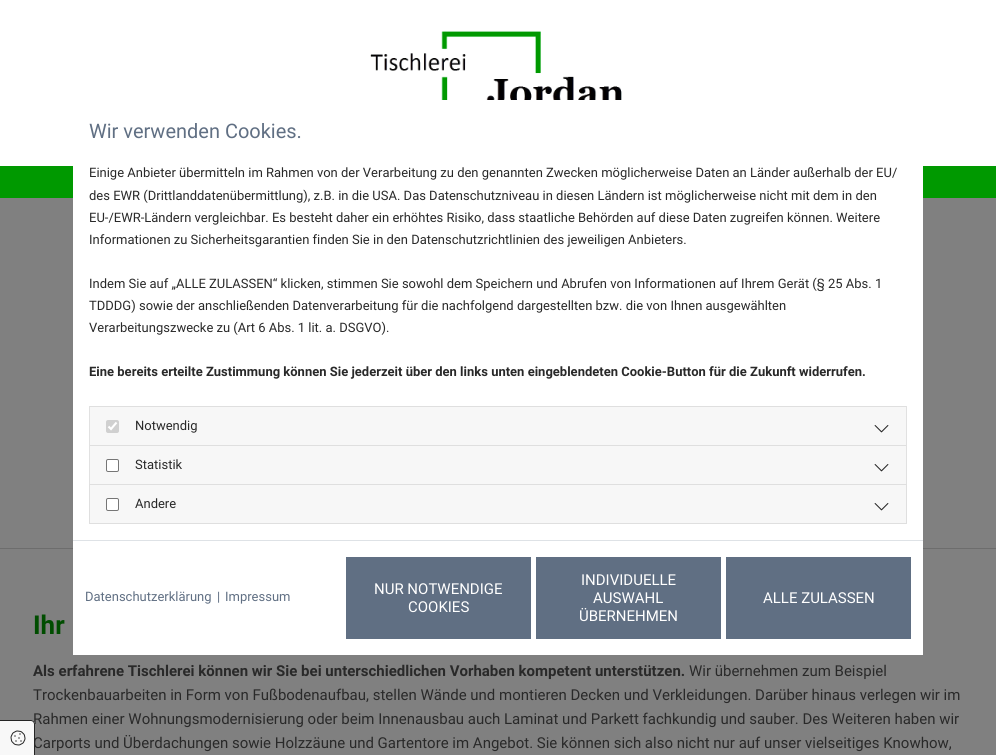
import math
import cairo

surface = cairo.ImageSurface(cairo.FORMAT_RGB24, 996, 755)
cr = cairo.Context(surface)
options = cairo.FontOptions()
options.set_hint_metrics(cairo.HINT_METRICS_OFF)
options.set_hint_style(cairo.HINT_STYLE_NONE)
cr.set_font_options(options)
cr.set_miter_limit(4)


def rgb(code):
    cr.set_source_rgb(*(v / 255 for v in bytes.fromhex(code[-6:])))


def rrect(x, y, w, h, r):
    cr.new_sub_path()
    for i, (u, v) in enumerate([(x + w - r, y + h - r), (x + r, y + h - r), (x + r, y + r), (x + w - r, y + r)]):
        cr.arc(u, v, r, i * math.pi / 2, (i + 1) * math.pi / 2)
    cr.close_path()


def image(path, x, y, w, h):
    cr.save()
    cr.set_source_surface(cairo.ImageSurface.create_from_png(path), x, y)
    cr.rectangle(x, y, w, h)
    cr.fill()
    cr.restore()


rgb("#808080")
cr.paint()
for x, y, w, h, color in [
    (0, 166, 996, 32, "#009900"),
    (0, 548, 996, 1, "#6d6d6d"),
    (73, 166, 850, 489, "#ffffff"),
]:
    rgb(color)
    cr.rectangle(x, y, w, h)
    cr.fill()
rgb("#dfdfdf")
cr.new_path()
cr.move_to(89, 406)
cr.line_to(907, 406)
cr.line_to(906, 407)
cr.line_to(90, 407)
cr.close_path()
cr.fill()
cr.set_source_rgba(0, 0, 0, 0.12)
cr.new_path()
cr.move_to(907, 406)
cr.line_to(907, 445)
cr.line_to(906, 445)
cr.line_to(906, 407)
cr.close_path()
cr.fill()
cr.new_path()
cr.move_to(89, 445)
cr.line_to(89, 406)
cr.line_to(90, 407)
cr.line_to(90, 445)
cr.close_path()
cr.fill()
rgb("#f7f7f7")
cr.rectangle(90, 407, 816, 38)
cr.fill()
rgb("#d0d0d0")
rrect(106, 420, 13, 13, 2)
cr.fill()
cr.new_path()
cr.move_to(108.5, 426.5)
cr.line_to(111, 429)
cr.line_to(116.5, 422.5)
rgb("#ffffff")
cr.set_line_width(2.1)
cr.stroke()
image("img/1.png", 874, 425, 15, 8)
rgb("#dfdfdf")
cr.new_path()
cr.move_to(89, 445)
cr.line_to(907, 445)
cr.line_to(906, 446)
cr.line_to(90, 446)
cr.close_path()
cr.fill()
cr.set_source_rgba(0, 0, 0, 0.12)
cr.new_path()
cr.move_to(907, 445)
cr.line_to(907, 484)
cr.line_to(906, 484)
cr.line_to(906, 446)
cr.close_path()
cr.fill()
cr.new_path()
cr.move_to(89, 484)
cr.line_to(89, 445)
cr.line_to(90, 446)
cr.line_to(90, 484)
cr.close_path()
cr.fill()
rgb("#f7f7f7")
cr.rectangle(90, 446, 816, 38)
cr.fill()
rgb("#ffffff")
rrect(106.5, 459.5, 12, 12, 1.5)
cr.fill_preserve()
rgb("#767676")
cr.set_line_width(1)
cr.stroke()
image("img/1.png", 874, 464, 15, 8)
cr.rectangle(89.5, 484.5, 817, 39)
rgb("#dfdfdf")
cr.stroke()
rgb("#f7f7f7")
cr.rectangle(90, 485, 816, 38)
cr.fill()
rgb("#ffffff")
rrect(106.5, 498.5, 12, 12, 1.5)
cr.fill_preserve()
rgb("#767676")
cr.stroke()
image("img/1.png", 874, 503, 15, 8)
for x, y, w, h, color in [
    (73, 540, 850, 1, "#dee2e6"),
    (346, 557, 185, 82, "#606f83"),
    (536, 557, 185, 82, "#606f83"),
    (726, 557, 185, 82, "#606f83"),
    (0, 0, 996, 166, "#ffffff"),
]:
    rgb(color)
    cr.rectangle(x, y, w, h)
    cr.fill()
image("img/3.png", 370, 30, 255, 70)
cr.select_font_face("Roboto")
cr.set_font_size(20)
rgb("#606f83")
cr.move_to(89, 138)
cr.show_text("Wir verwenden Cookies.")
cr.set_font_size(13)
rgb("#292929")
for x, y, s in [
    (89, 177, "Einige Anbieter übermitteln im Rahmen von der Verarbeitung zu den genannten Zwecken möglicherweise Daten an Länder außerhalb der EU/"),
    (89, 200, "des EWR (Drittlanddatenübermittlung), z.B. in die USA. Das Datenschutzniveau in diesen Ländern ist möglicherweise nicht mit dem in den"),
    (89, 222, "EU-/EWR-Ländern vergleichbar. Es besteht daher ein erhöhtes Risiko, dass staatliche Behörden auf diese Daten zugreifen können. Weitere"),
    (89, 244, "Informationen zu Sicherheitsgarantien finden Sie in den Datenschutzrichtlinien des jeweiligen Anbieters."),
    (89, 288, "Indem Sie auf „ALLE ZULASSEN“ klicken, stimmen Sie sowohl dem Speichern und Abrufen von Informationen auf Ihrem Gerät (§ 25 Abs. 1"),
    (89, 310, "TDDDG) sowie der anschließenden Datenverarbeitung für die nachfolgend dargestellten bzw. die von Ihnen ausgewählten"),
    (89, 332, "Verarbeitungszwecke zu (Art 6 Abs. 1 lit. a. DSGVO)."),
]:
    cr.move_to(x, y)
    cr.show_text(s)
cr.select_font_face("Roboto", cairo.FONT_SLANT_NORMAL, cairo.FONT_WEIGHT_BOLD)
cr.move_to(89, 376)
cr.show_text("Eine bereits erteilte Zustimmung können Sie jederzeit über den links unten eingeblendeten Cookie-Button für die Zukunft widerrufen.")
cr.select_font_face("Roboto")
for x, y, s in [
    (135, 430, "Notwendig"),
    (135, 469, "Statistik"),
    (135, 508, "Andere"),
]:
    cr.move_to(x, y)
    cr.show_text(s)
rgb("#606f83")
for x, y, s in [
    (85, 601, "Datenschutzerklärung"),
    (217, 601, "|"),
    (225, 601, "Impressum"),
]:
    cr.move_to(x, y)
    cr.show_text(s)
cr.set_font_size(15)
rgb("#ffffff")
for x, y, s in [
    (374, 594, "NUR NOTWENDIGE"),
    (408, 612, "COOKIES"),
    (581, 585, "INDIVIDUELLE"),
    (593, 603, "AUSWAHL"),
    (579, 621, "ÜBERNEHMEN"),
    (763, 603, "ALLE ZULASSEN"),
]:
    cr.move_to(x, y)
    cr.show_text(s)
cr.select_font_face("Roboto", cairo.FONT_SLANT_NORMAL, cairo.FONT_WEIGHT_BOLD)
cr.set_font_size(26)
rgb("#004d00")
cr.move_to(33, 634)
cr.show_text("Ihr")
cr.set_font_size(15)
rgb("#292929")
cr.move_to(33, 676)
cr.show_text("Als erfahrene Tischlerei können wir Sie bei unterschiedlichen Vorhaben kompetent unterstützen.")
cr.select_font_face("Roboto")
for x, y, s in [
    (689, 676, "Wir übernehmen zum Beispiel"),
    (33, 700, "Trockenbauarbeiten in Form von Fußbodenaufbau, stellen Wände und montieren Decken und Verkleidungen. Darüber hinaus verlegen wir im"),
    (33, 724, "Rahmen einer Wohnungsmodernisierung oder beim Innenausbau auch Laminat und Parkett fachkundig und sauber. Des Weiteren haben wir"),
    (33, 748, "Carports und Überdachungen sowie Holzzäune und Gartentore im Angebot. Sie können sich also nicht nur auf unser vielseitiges Knowhow,"),
]:
    cr.move_to(x, y)
    cr.show_text(s)
rgb("#f8f8f8")
cr.new_path()
cr.move_to(0, 720)
cr.line_to(31, 720)
cr.curve_to(33, 720, 35, 722, 35, 724)
cr.line_to(35, 755)
cr.line_to(0, 755)
cr.close_path()
cr.fill()
rgb("#252525")
cr.set_fill_rule(cairo.FILL_RULE_EVEN_ODD)
cr.new_path()
cr.move_to(0, 720)
cr.line_to(31, 720)
cr.curve_to(33, 720, 35, 722, 35, 724)
cr.line_to(35, 755)
cr.line_to(0, 755)
cr.close_path()
cr.move_to(0, 721)
cr.line_to(31, 721)
cr.curve_to(32.5, 721, 34, 722.5, 34, 724)
cr.line_to(34, 755)
cr.line_to(0, 755)
cr.close_path()
cr.fill()
image("img/2.png", 10, 730, 16, 16)
surface.write_to_png("page.png")
